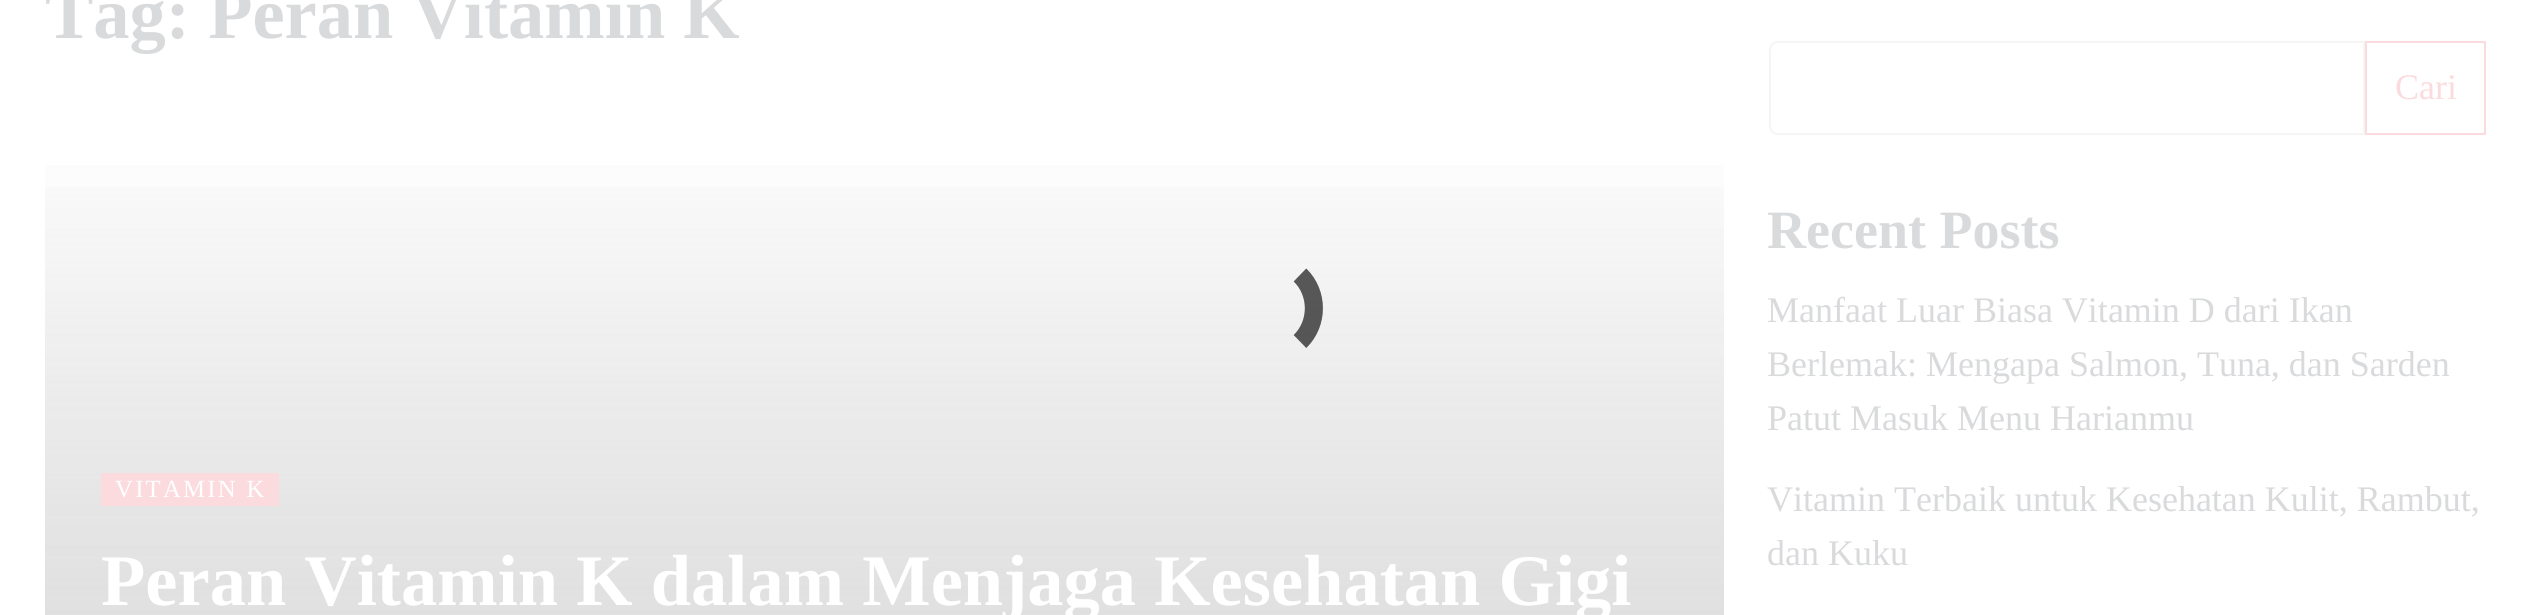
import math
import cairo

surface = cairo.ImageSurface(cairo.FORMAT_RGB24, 2531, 615)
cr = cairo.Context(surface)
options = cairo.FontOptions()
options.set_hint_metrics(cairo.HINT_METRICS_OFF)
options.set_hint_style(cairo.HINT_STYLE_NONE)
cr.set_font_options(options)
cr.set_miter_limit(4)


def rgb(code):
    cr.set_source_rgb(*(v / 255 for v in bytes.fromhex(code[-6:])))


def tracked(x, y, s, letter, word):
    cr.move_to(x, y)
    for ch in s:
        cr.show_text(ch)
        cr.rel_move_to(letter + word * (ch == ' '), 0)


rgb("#ffffff")
cr.paint()
gradient = cairo.LinearGradient(884, 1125, 884, 112)
gradient.add_color_stop_rgba(0, 0.812, 0.812, 0.812, 1)
gradient.add_color_stop_rgba(1, 1, 1, 1, 1)
cr.set_source(gradient)
cr.rectangle(45, 165, 1679, 450)
cr.fill()
gradient = cairo.LinearGradient(884, 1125, 884, 112)
gradient.add_color_stop_rgba(0, 0.812, 0.812, 0.812, 0.6)
gradient.add_color_stop_rgba(1, 0.812, 0.812, 0.812, 0)
cr.set_source(gradient)
cr.rectangle(45, 188, 1679, 427)
cr.fill()
rgb("#fcdbde")
cr.rectangle(101, 473, 178, 33)
cr.fill()
cr.new_path()
cr.move_to(1778, 42)
cr.line_to(2364, 42)
cr.line_to(2364, 134)
cr.line_to(1778, 134)
cr.curve_to(1773.5, 134, 1770, 130.5, 1770, 126)
cr.line_to(1770, 50)
cr.curve_to(1770, 45.5, 1773.5, 42, 1778, 42)
cr.close_path()
rgb("#f5f5f5")
cr.stroke()
cr.rectangle(2366, 42, 119, 92)
rgb("#fcdbde")
cr.stroke()
cr.new_path()
cr.move_to(1300, 275)
cr.curve_to(1318.5, 293, 1318.5, 323.5, 1300, 341.5)
cr.set_source_rgba(0, 0, 0, 0.29)
cr.set_line_width(18)
cr.stroke()
cr.new_path()
cr.move_to(1300, 275)
cr.curve_to(1318.5, 293, 1318.5, 323.5, 1300, 341.5)
cr.stroke()
cr.new_path()
cr.move_to(1300, 275)
cr.curve_to(1318.5, 293, 1318.5, 323.5, 1300, 341.5)
cr.stroke()
cr.select_font_face("Liberation Serif", cairo.FONT_SLANT_NORMAL, cairo.FONT_WEIGHT_BOLD)
cr.set_font_size(72.5)
rgb("#d9dadc")
cr.move_to(45, 38)
cr.show_text("Tag: Peran Vitamin K")
cr.select_font_face("Liberation Serif")
cr.set_font_size(24.75)
rgb("#ffffff")
tracked(115, 497, "VITAMIN K", 2.25, 0)
cr.select_font_face("Liberation Serif", cairo.FONT_SLANT_NORMAL, cairo.FONT_WEIGHT_BOLD)
cr.set_font_size(72.5)
cr.move_to(101, 605)
cr.show_text("Peran Vitamin K dalam Menjaga Kesehatan Gigi")
cr.select_font_face("Liberation Serif")
cr.set_font_size(36)
rgb("#fcdbde")
cr.move_to(2395, 99)
cr.show_text("Cari")
cr.select_font_face("Liberation Serif", cairo.FONT_SLANT_NORMAL, cairo.FONT_WEIGHT_BOLD)
cr.set_font_size(54)
rgb("#d9dadc")
cr.move_to(1767, 248)
cr.show_text("Recent Posts")
cr.select_font_face("Liberation Serif")
cr.set_font_size(36)
for x, y, s in [
    (1767, 322, "Manfaat Luar Biasa Vitamin D dari Ikan"),
    (1767, 376, "Berlemak: Mengapa Salmon, Tuna, dan Sarden"),
    (1767, 430, "Patut Masuk Menu Harianmu"),
    (1767, 511, "Vitamin Terbaik untuk Kesehatan Kulit, Rambut,"),
    (1767, 565, "dan Kuku"),
]:
    cr.move_to(x, y)
    cr.show_text(s)
surface.write_to_png("page.png")
